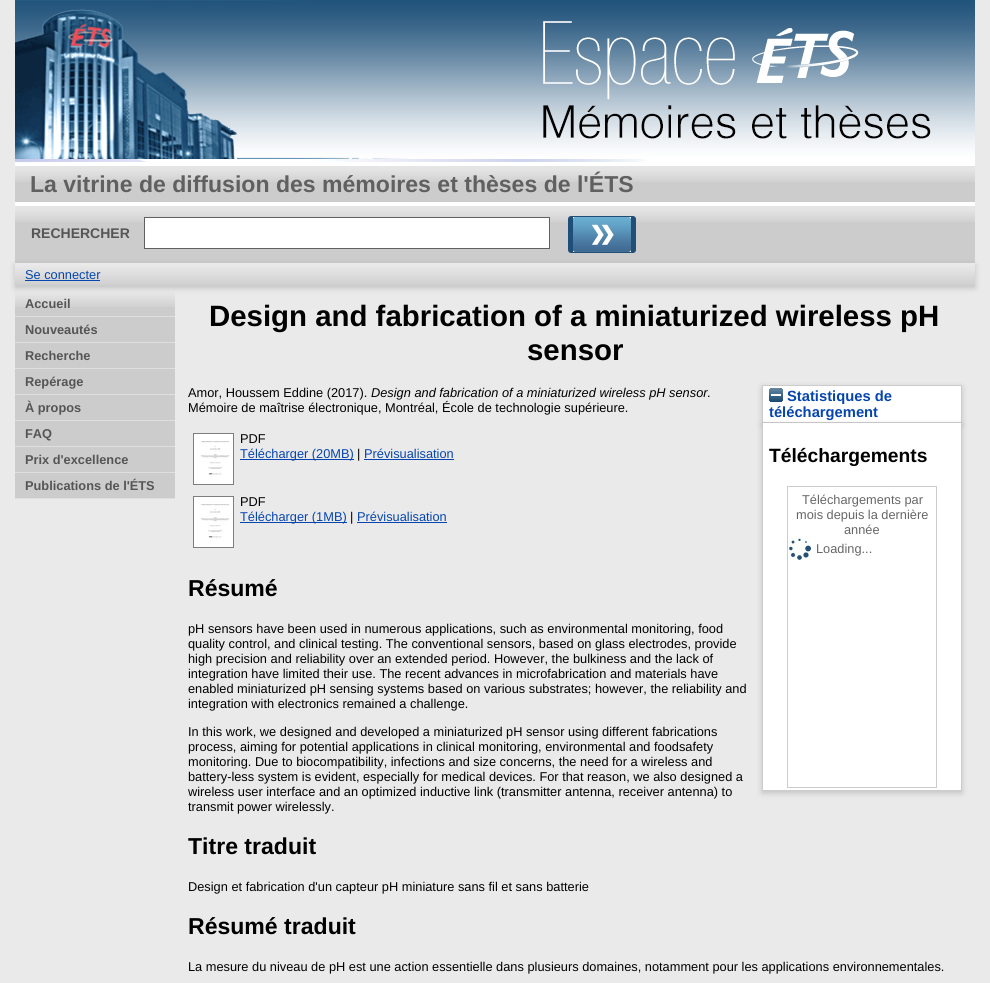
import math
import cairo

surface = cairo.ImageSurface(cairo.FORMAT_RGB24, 990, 983)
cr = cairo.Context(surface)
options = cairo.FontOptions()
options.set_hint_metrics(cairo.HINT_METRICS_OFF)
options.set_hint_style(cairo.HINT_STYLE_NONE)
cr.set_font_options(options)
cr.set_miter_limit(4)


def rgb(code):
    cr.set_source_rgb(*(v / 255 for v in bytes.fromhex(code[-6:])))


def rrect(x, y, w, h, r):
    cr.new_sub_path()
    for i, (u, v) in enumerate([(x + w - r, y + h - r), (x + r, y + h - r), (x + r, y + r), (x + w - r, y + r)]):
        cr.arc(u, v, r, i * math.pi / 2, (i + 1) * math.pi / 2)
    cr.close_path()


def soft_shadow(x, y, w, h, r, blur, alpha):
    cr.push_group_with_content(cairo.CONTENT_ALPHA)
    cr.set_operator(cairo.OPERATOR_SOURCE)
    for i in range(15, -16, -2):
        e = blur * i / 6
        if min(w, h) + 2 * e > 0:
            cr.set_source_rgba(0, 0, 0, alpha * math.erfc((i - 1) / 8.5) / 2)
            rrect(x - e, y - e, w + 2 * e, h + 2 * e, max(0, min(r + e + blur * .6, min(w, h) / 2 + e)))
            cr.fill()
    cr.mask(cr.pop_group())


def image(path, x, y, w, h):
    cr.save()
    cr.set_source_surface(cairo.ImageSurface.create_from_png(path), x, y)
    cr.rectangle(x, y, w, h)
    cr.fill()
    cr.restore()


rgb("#eaeaea")
cr.paint()
rgb("#ffffff")
cr.rectangle(15, 159, 960, 7)
cr.fill()
image("img/1.png", 15, 159, 631, 3)
image("img/2.png", 15, 0, 960, 159)
rgb("#cccccc")
cr.rectangle(15, 182, 960, 20)
cr.fill()
image("img/3.png", 15, 166, 960, 16)
cr.rectangle(15, 222, 960, 41)
cr.fill()
image("img/3.png", 15, 206, 960, 16)
rgb("#ffffff")
cr.rectangle(15, 202, 960, 4)
cr.fill()
cr.rectangle(144.5, 217.5, 405, 31)
cr.fill_preserve()
rgb("#606060")
cr.set_line_width(1)
cr.stroke()
rgb("#1f4f76")
rrect(568, 216, 68, 37, 3)
cr.fill()
image("img/4.png", 573, 217, 58, 35)
rgb("#646464")
soft_shadow(15, 265, 960, 23, 0, 3, 0.3)
rgb("#cccccc")
cr.rectangle(15, 263, 960, 23)
cr.fill()
image("img/5.png", 15, 263, 960, 22)
rgb("#0645ad")
cr.rectangle(25, 280, 75, 1)
cr.fill()
rgb("#cccccc")
cr.rectangle(15, 307, 160, 191)
cr.fill()
image("img/6.png", 15, 291, 160, 16)
for x, y, w, h, color in [
    (15, 316, 160, 1, "#dfdfdf"),
    (15, 342, 160, 1, "#dfdfdf"),
    (15, 368, 160, 1, "#dfdfdf"),
    (15, 394, 160, 1, "#dfdfdf"),
    (15, 420, 160, 1, "#dfdfdf"),
    (15, 446, 160, 1, "#dfdfdf"),
    (15, 472, 160, 1, "#dfdfdf"),
    (15, 498, 160, 1, "#dfdfdf"),
]:
    rgb(color)
    cr.rectangle(x, y, w, h)
    cr.fill()
image("img/7.png", 193, 433, 41, 52)
rgb("#0645ad")
cr.rectangle(240, 459, 114, 1)
cr.fill()
cr.rectangle(364, 459, 90, 1)
cr.fill()
image("img/8.png", 193, 496, 41, 52)
cr.rectangle(240, 522, 107, 1)
cr.fill()
cr.rectangle(357, 522, 90, 1)
cr.fill()
rgb("#646464")
soft_shadow(762, 387, 200, 38, 0, 3, 0.3)
rgb("#ffffff")
cr.rectangle(762.5, 385.5, 199, 37)
cr.fill_preserve()
rgb("#cccccc")
cr.stroke()
image("img/9.png", 769, 388, 14, 14)
rgb("#646464")
soft_shadow(762, 425, 200, 368, 0, 3, 0.3)
for x, y, w, h, color in [
    (763, 423, 198, 367, "#ffffff"),
    (961, 423, 1, 368, "#cccccc"),
    (762, 790, 200, 1, "#cccccc"),
    (762, 423, 1, 368, "#cccccc"),
]:
    rgb(color)
    cr.rectangle(x, y, w, h)
    cr.fill()
cr.rectangle(787.5, 486.5, 149, 301)
cr.stroke()
image("img/10.png", 789, 538, 22, 22)
cr.select_font_face("Liberation Sans", cairo.FONT_SLANT_NORMAL, cairo.FONT_WEIGHT_BOLD)
cr.set_font_size(23.05)
rgb("#606060")
cr.move_to(30, 192)
cr.show_text("La vitrine de diffusion des mémoires et thèses de l'ÉTS")
cr.set_font_size(14)
rgb("#555555")
cr.move_to(31, 238)
cr.show_text("RECHERCHER")
cr.select_font_face("Liberation Sans")
cr.set_font_size(12.8)
rgb("#0645ad")
cr.move_to(25, 279)
cr.show_text("Se connecter")
cr.select_font_face("Liberation Sans", cairo.FONT_SLANT_NORMAL, cairo.FONT_WEIGHT_BOLD)
rgb("#555555")
for x, y, s in [
    (25, 308, "Accueil"),
    (25, 334, "Nouveautés"),
    (25, 360, "Recherche"),
    (25, 386, "Repérage"),
    (25, 412, "À propos"),
    (25, 438, "FAQ"),
    (25, 464, "Prix d'excellence"),
    (25, 490, "Publications de l'ÉTS"),
]:
    cr.move_to(x, y)
    cr.show_text(s)
cr.set_font_size(29.4)
rgb("#000000")
cr.move_to(209, 326)
cr.show_text("Design and fabrication of a miniaturized wireless pH")
cr.move_to(527, 360)
cr.show_text("sensor")
cr.select_font_face("Liberation Sans")
cr.set_font_size(12.8)
cr.move_to(188, 397)
cr.show_text("Amor, Houssem Eddine (2017).")
cr.select_font_face("Liberation Sans", cairo.FONT_SLANT_ITALIC)
cr.move_to(371, 397)
cr.show_text("Design and fabrication of a miniaturized wireless pH sensor.")
cr.select_font_face("Liberation Sans")
cr.move_to(188, 412)
cr.show_text("Mémoire de maîtrise électronique, Montréal, École de technologie supérieure.")
cr.move_to(240, 443)
cr.show_text("PDF")
rgb("#0645ad")
cr.move_to(240, 458)
cr.show_text("Télécharger (20MB)")
rgb("#000000")
cr.move_to(357, 458)
cr.show_text("|")
rgb("#0645ad")
cr.move_to(364, 458)
cr.show_text("Prévisualisation")
rgb("#000000")
cr.move_to(240, 506)
cr.show_text("PDF")
rgb("#0645ad")
cr.move_to(240, 521)
cr.show_text("Télécharger (1MB)")
rgb("#000000")
cr.move_to(350, 521)
cr.show_text("|")
rgb("#0645ad")
cr.move_to(357, 521)
cr.show_text("Prévisualisation")
cr.select_font_face("Liberation Sans", cairo.FONT_SLANT_NORMAL, cairo.FONT_WEIGHT_BOLD)
cr.set_font_size(23.05)
rgb("#000000")
cr.move_to(188, 596)
cr.show_text("Résumé")
cr.select_font_face("Liberation Sans")
cr.set_font_size(12.8)
for x, y, s in [
    (188, 633, "pH sensors have been used in numerous applications, such as environmental monitoring, food"),
    (188, 648, "quality control, and clinical testing. The conventional sensors, based on glass electrodes, provide"),
    (188, 663, "high precision and reliability over an extended period. However, the bulkiness and the lack of"),
    (188, 678, "integration have limited their use. The recent advances in microfabrication and materials have"),
    (188, 693, "enabled miniaturized pH sensing systems based on various substrates; however, the reliability and"),
    (188, 708, "integration with electronics remained a challenge."),
    (188, 736, "In this work, we designed and developed a miniaturized pH sensor using different fabrications"),
    (188, 751, "process, aiming for potential applications in clinical monitoring, environmental and foodsafety"),
    (188, 766, "monitoring. Due to biocompatibility, infections and size concerns, the need for a wireless and"),
    (188, 781, "battery-less system is evident, especially for medical devices. For that reason, we also designed a"),
    (188, 796, "wireless user interface and an optimized inductive link (transmitter antenna, receiver antenna) to"),
    (188, 811, "transmit power wirelessly."),
]:
    cr.move_to(x, y)
    cr.show_text(s)
cr.select_font_face("Liberation Sans", cairo.FONT_SLANT_NORMAL, cairo.FONT_WEIGHT_BOLD)
cr.set_font_size(23.05)
cr.move_to(188, 854)
cr.show_text("Titre traduit")
cr.select_font_face("Liberation Sans")
cr.set_font_size(12.8)
cr.move_to(188, 891)
cr.show_text("Design et fabrication d'un capteur pH miniature sans fil et sans batterie")
cr.select_font_face("Liberation Sans", cairo.FONT_SLANT_NORMAL, cairo.FONT_WEIGHT_BOLD)
cr.set_font_size(23.05)
cr.move_to(188, 934)
cr.show_text("Résumé traduit")
cr.select_font_face("Liberation Sans")
cr.set_font_size(12.8)
cr.move_to(188, 971)
cr.show_text("La mesure du niveau de pH est une action essentielle dans plusieurs domaines, notamment pour les applications environnementales.")
cr.select_font_face("Liberation Sans", cairo.FONT_SLANT_NORMAL, cairo.FONT_WEIGHT_BOLD)
cr.set_font_size(14.75)
rgb("#0645ad")
cr.move_to(787, 401)
cr.show_text("Statistiques de")
cr.move_to(769, 417)
cr.show_text("téléchargement")
cr.set_font_size(19.25)
rgb("#000000")
cr.move_to(769, 462)
cr.show_text("Téléchargements")
cr.select_font_face("Liberation Sans")
cr.set_font_size(12.8)
rgb("#666666")
for x, y, s in [
    (802, 504, "Téléchargements par"),
    (796, 519, "mois depuis la dernière"),
    (844, 534, "année"),
    (816, 553, "Loading..."),
]:
    cr.move_to(x, y)
    cr.show_text(s)
surface.write_to_png("page.png")
